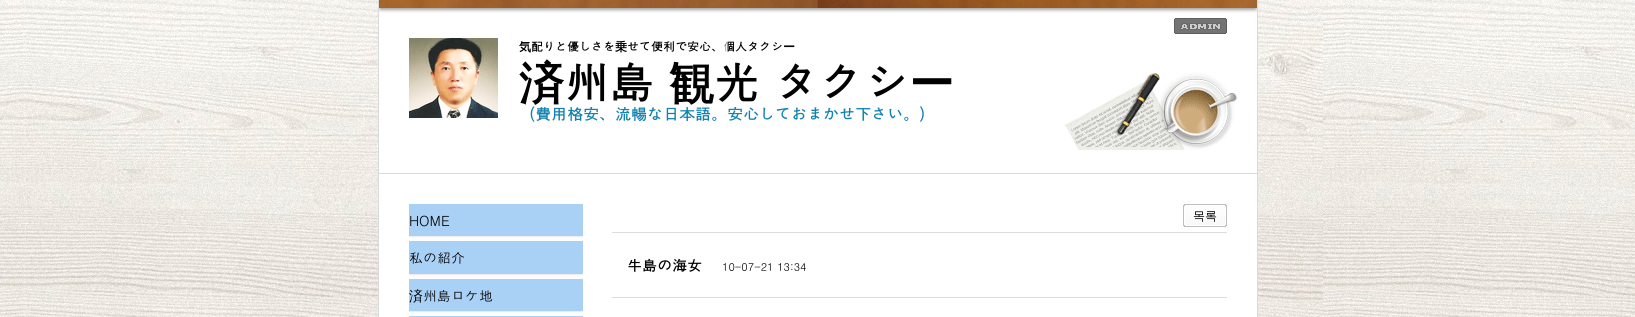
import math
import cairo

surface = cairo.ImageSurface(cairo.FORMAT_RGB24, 1635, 317)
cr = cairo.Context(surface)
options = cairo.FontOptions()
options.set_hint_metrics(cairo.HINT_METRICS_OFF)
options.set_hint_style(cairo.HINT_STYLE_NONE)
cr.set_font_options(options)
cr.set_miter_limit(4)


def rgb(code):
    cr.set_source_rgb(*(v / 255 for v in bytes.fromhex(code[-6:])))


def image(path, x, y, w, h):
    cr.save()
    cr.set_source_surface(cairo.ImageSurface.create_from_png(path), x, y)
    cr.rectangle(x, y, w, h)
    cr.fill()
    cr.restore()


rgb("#ffffff")
cr.paint()
image("img/1.png", 0, 0, 1635, 317)
for x, y, w, h, color in [
    (379, 13, 878, 304, "#ffffff"),
    (1257, 0, 1, 317, "#dadada"),
    (378, 0, 1, 317, "#dadada"),
]:
    rgb(color)
    cr.rectangle(x, y, w, h)
    cr.fill()
image("img/2.png", 379, 0, 878, 13)
image("img/3.png", 1174, 18, 53, 16)
image("img/4.png", 409, 34, 829, 116)
cr.rectangle(379, 173, 878, 1)
cr.fill()
rgb("#a9d0f5")
cr.rectangle(409, 204, 174, 113)
cr.fill()
image("img/5.png", 409, 236, 174, 5)
image("img/5.png", 409, 274, 174, 5)
image("img/5.png", 409, 311, 174, 5)
image("img/6.png", 1183, 204, 42, 23)
image("img/7.png", 1225, 204, 2, 23)
rgb("#dddddd")
cr.rectangle(612, 232, 615, 1)
cr.fill()
cr.rectangle(612, 297, 615, 1)
cr.fill()
cr.select_font_face("WenQuanYi Zen Hei", cairo.FONT_SLANT_NORMAL, cairo.FONT_WEIGHT_BOLD)
cr.set_font_size(12)
rgb("#000000")
cr.move_to(519, 51)
cr.show_text("気")
cr.select_font_face("Dotum", cairo.FONT_SLANT_NORMAL, cairo.FONT_WEIGHT_BOLD)
cr.move_to(531, 51)
cr.show_text("配りと優しさを")
cr.select_font_face("WenQuanYi Zen Hei", cairo.FONT_SLANT_NORMAL, cairo.FONT_WEIGHT_BOLD)
cr.move_to(615, 51)
cr.show_text("乗")
cr.select_font_face("Dotum", cairo.FONT_SLANT_NORMAL, cairo.FONT_WEIGHT_BOLD)
cr.move_to(627, 51)
cr.show_text("せて便利で安心、個人タクシ")
cr.select_font_face("WenQuanYi Zen Hei", cairo.FONT_SLANT_NORMAL, cairo.FONT_WEIGHT_BOLD)
cr.move_to(783, 51)
cr.show_text("ー")
cr.set_font_size(45)
cr.move_to(519, 99)
cr.show_text("済")
cr.select_font_face("Dotum", cairo.FONT_SLANT_NORMAL, cairo.FONT_WEIGHT_BOLD)
cr.move_to(564, 99)
cr.show_text("州島")
cr.select_font_face("WenQuanYi Zen Hei", cairo.FONT_SLANT_NORMAL, cairo.FONT_WEIGHT_BOLD)
cr.move_to(669, 99)
cr.show_text("観")
cr.select_font_face("Dotum", cairo.FONT_SLANT_NORMAL, cairo.FONT_WEIGHT_BOLD)
cr.move_to(714, 99)
cr.show_text("光 タクシ")
cr.select_font_face("WenQuanYi Zen Hei", cairo.FONT_SLANT_NORMAL, cairo.FONT_WEIGHT_BOLD)
cr.move_to(909, 99)
cr.show_text("ー")
cr.select_font_face("Dotum", cairo.FONT_SLANT_NORMAL, cairo.FONT_WEIGHT_BOLD)
cr.set_font_size(16)
rgb("#1382b0")
cr.move_to(519, 120)
cr.show_text("（費用格安、流暢な日本語。安心しておまかせ下さい。)")
cr.select_font_face("Dotum")
cr.set_font_size(14)
rgb("#000000")
cr.move_to(409, 226)
cr.show_text("HOME")
cr.move_to(409, 263)
cr.show_text("私の紹介")
cr.select_font_face("WenQuanYi Zen Hei Medium")
cr.move_to(409, 301)
cr.show_text("済")
cr.select_font_face("Dotum")
cr.move_to(423, 301)
cr.show_text("州島ロケ地")
cr.select_font_face("WenQuanYi Zen Hei Medium")
cr.set_font_size(12)
cr.move_to(1193, 220)
cr.show_text("목록")
cr.select_font_face("Dotum", cairo.FONT_SLANT_NORMAL, cairo.FONT_WEIGHT_BOLD)
cr.set_font_size(15)
cr.move_to(627, 271)
cr.show_text("牛島の海女")
cr.select_font_face("Dotum")
cr.set_font_size(11)
cr.move_to(722, 271)
cr.show_text("10-07-21 13:34")
surface.write_to_png("page.png")
